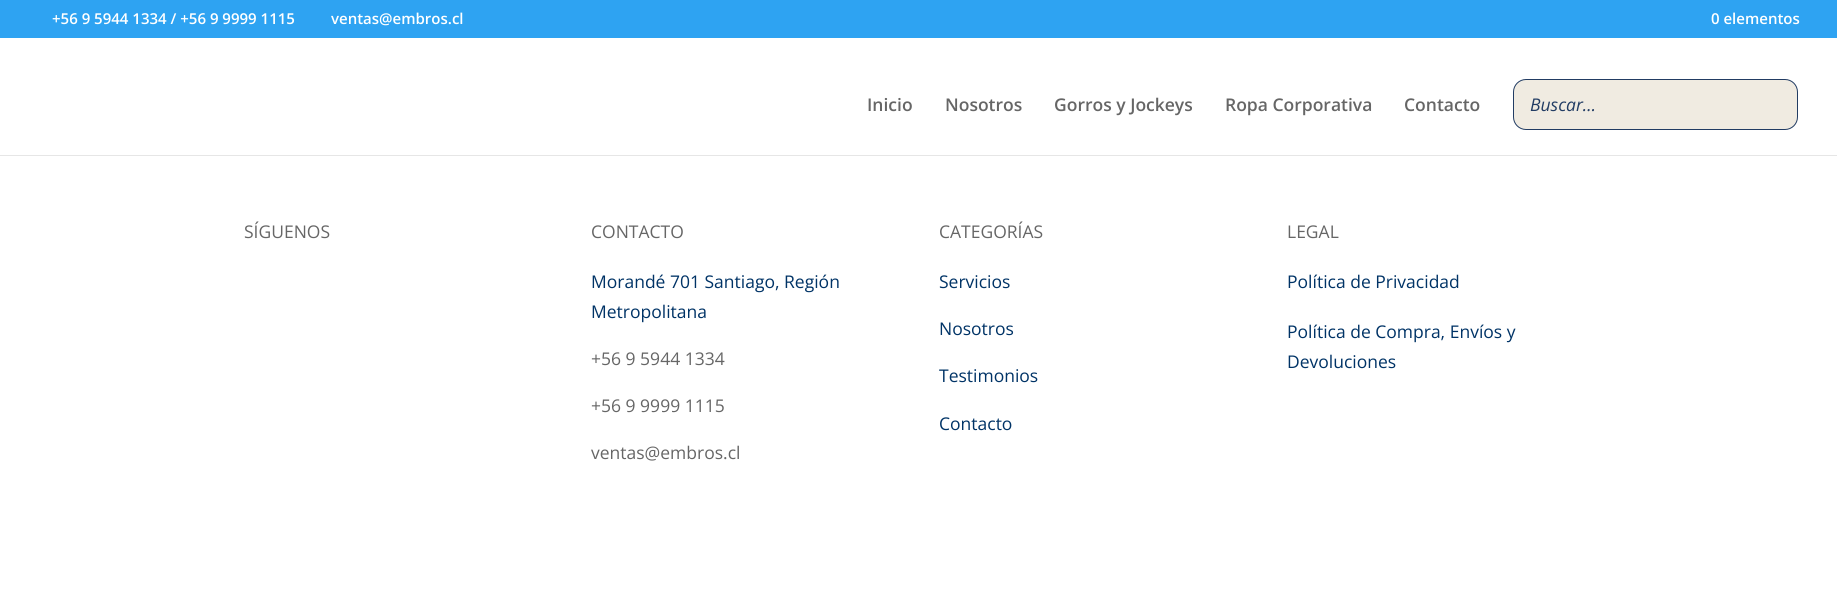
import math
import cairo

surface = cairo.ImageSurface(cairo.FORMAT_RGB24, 1837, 589)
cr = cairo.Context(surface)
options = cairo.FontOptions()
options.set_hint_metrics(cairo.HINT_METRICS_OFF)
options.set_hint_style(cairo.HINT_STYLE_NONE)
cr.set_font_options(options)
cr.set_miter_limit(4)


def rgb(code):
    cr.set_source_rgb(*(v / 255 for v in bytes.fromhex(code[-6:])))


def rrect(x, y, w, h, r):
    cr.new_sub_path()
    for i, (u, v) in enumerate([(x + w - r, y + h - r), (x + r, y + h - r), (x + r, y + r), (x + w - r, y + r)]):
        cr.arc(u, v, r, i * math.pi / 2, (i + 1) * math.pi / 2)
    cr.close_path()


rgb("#ffffff")
cr.paint()
rgb("#2ea3f2")
cr.rectangle(0, 0, 1837, 38)
cr.fill()
rgb("#e6e6e6")
cr.new_path()
cr.move_to(0, 155)
cr.line_to(0, 156)
cr.line_to(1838, 156)
cr.line_to(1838, 39)
cr.line_to(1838, 155)
cr.close_path()
cr.fill()
rgb("#f0ebe1")
rrect(1513.5, 79.5, 284, 50, 12.5)
cr.fill_preserve()
rgb("#223c63")
cr.set_line_width(1)
cr.stroke()
cr.select_font_face("Open Sans SemiBold")
cr.set_font_size(15)
rgb("#ffffff")
for x, y, s in [
    (52, 24, "+56 9 5944 1334 / +56 9 9999 1115"),
    (331, 24, "ventas@embros.cl"),
    (1711, 24, "0 elementos"),
]:
    cr.move_to(x, y)
    cr.show_text(s)
cr.set_font_size(17.5)
rgb("#666666")
for x, y, s in [
    (867, 111, "Inicio"),
    (945, 111, "Nosotros"),
    (1054, 111, "Gorros y Jockeys"),
    (1225, 111, "Ropa Corporativa"),
    (1404, 111, "Contacto"),
]:
    cr.move_to(x, y)
    cr.show_text(s)
cr.select_font_face("Open Sans", cairo.FONT_SLANT_ITALIC)
rgb("#223c63")
cr.move_to(1530, 111)
cr.show_text("Buscar…")
cr.select_font_face("Open Sans")
rgb("#666666")
cr.move_to(244, 238)
cr.show_text("SÍGUENOS")
cr.move_to(591, 238)
cr.show_text("CONTACTO")
rgb("#003366")
cr.move_to(591, 288)
cr.show_text("Morandé 701 Santiago, Región")
cr.move_to(591, 318)
cr.show_text("Metropolitana")
rgb("#666666")
for x, y, s in [
    (591, 365, "+56 9 5944 1334"),
    (591, 412, "+56 9 9999 1115"),
    (591, 459, "ventas@embros.cl"),
    (939, 238, "CATEGORÍAS"),
]:
    cr.move_to(x, y)
    cr.show_text(s)
rgb("#003366")
for x, y, s in [
    (939, 288, "Servicios"),
    (939, 335, "Nosotros"),
    (939, 382, "Testimonios"),
    (939, 430, "Contacto"),
]:
    cr.move_to(x, y)
    cr.show_text(s)
rgb("#666666")
cr.move_to(1287, 238)
cr.show_text("LEGAL")
rgb("#003366")
for x, y, s in [
    (1287, 288, "Política de Privacidad"),
    (1287, 338, "Política de Compra, Envíos y"),
    (1287, 368, "Devoluciones"),
]:
    cr.move_to(x, y)
    cr.show_text(s)
surface.write_to_png("page.png")
